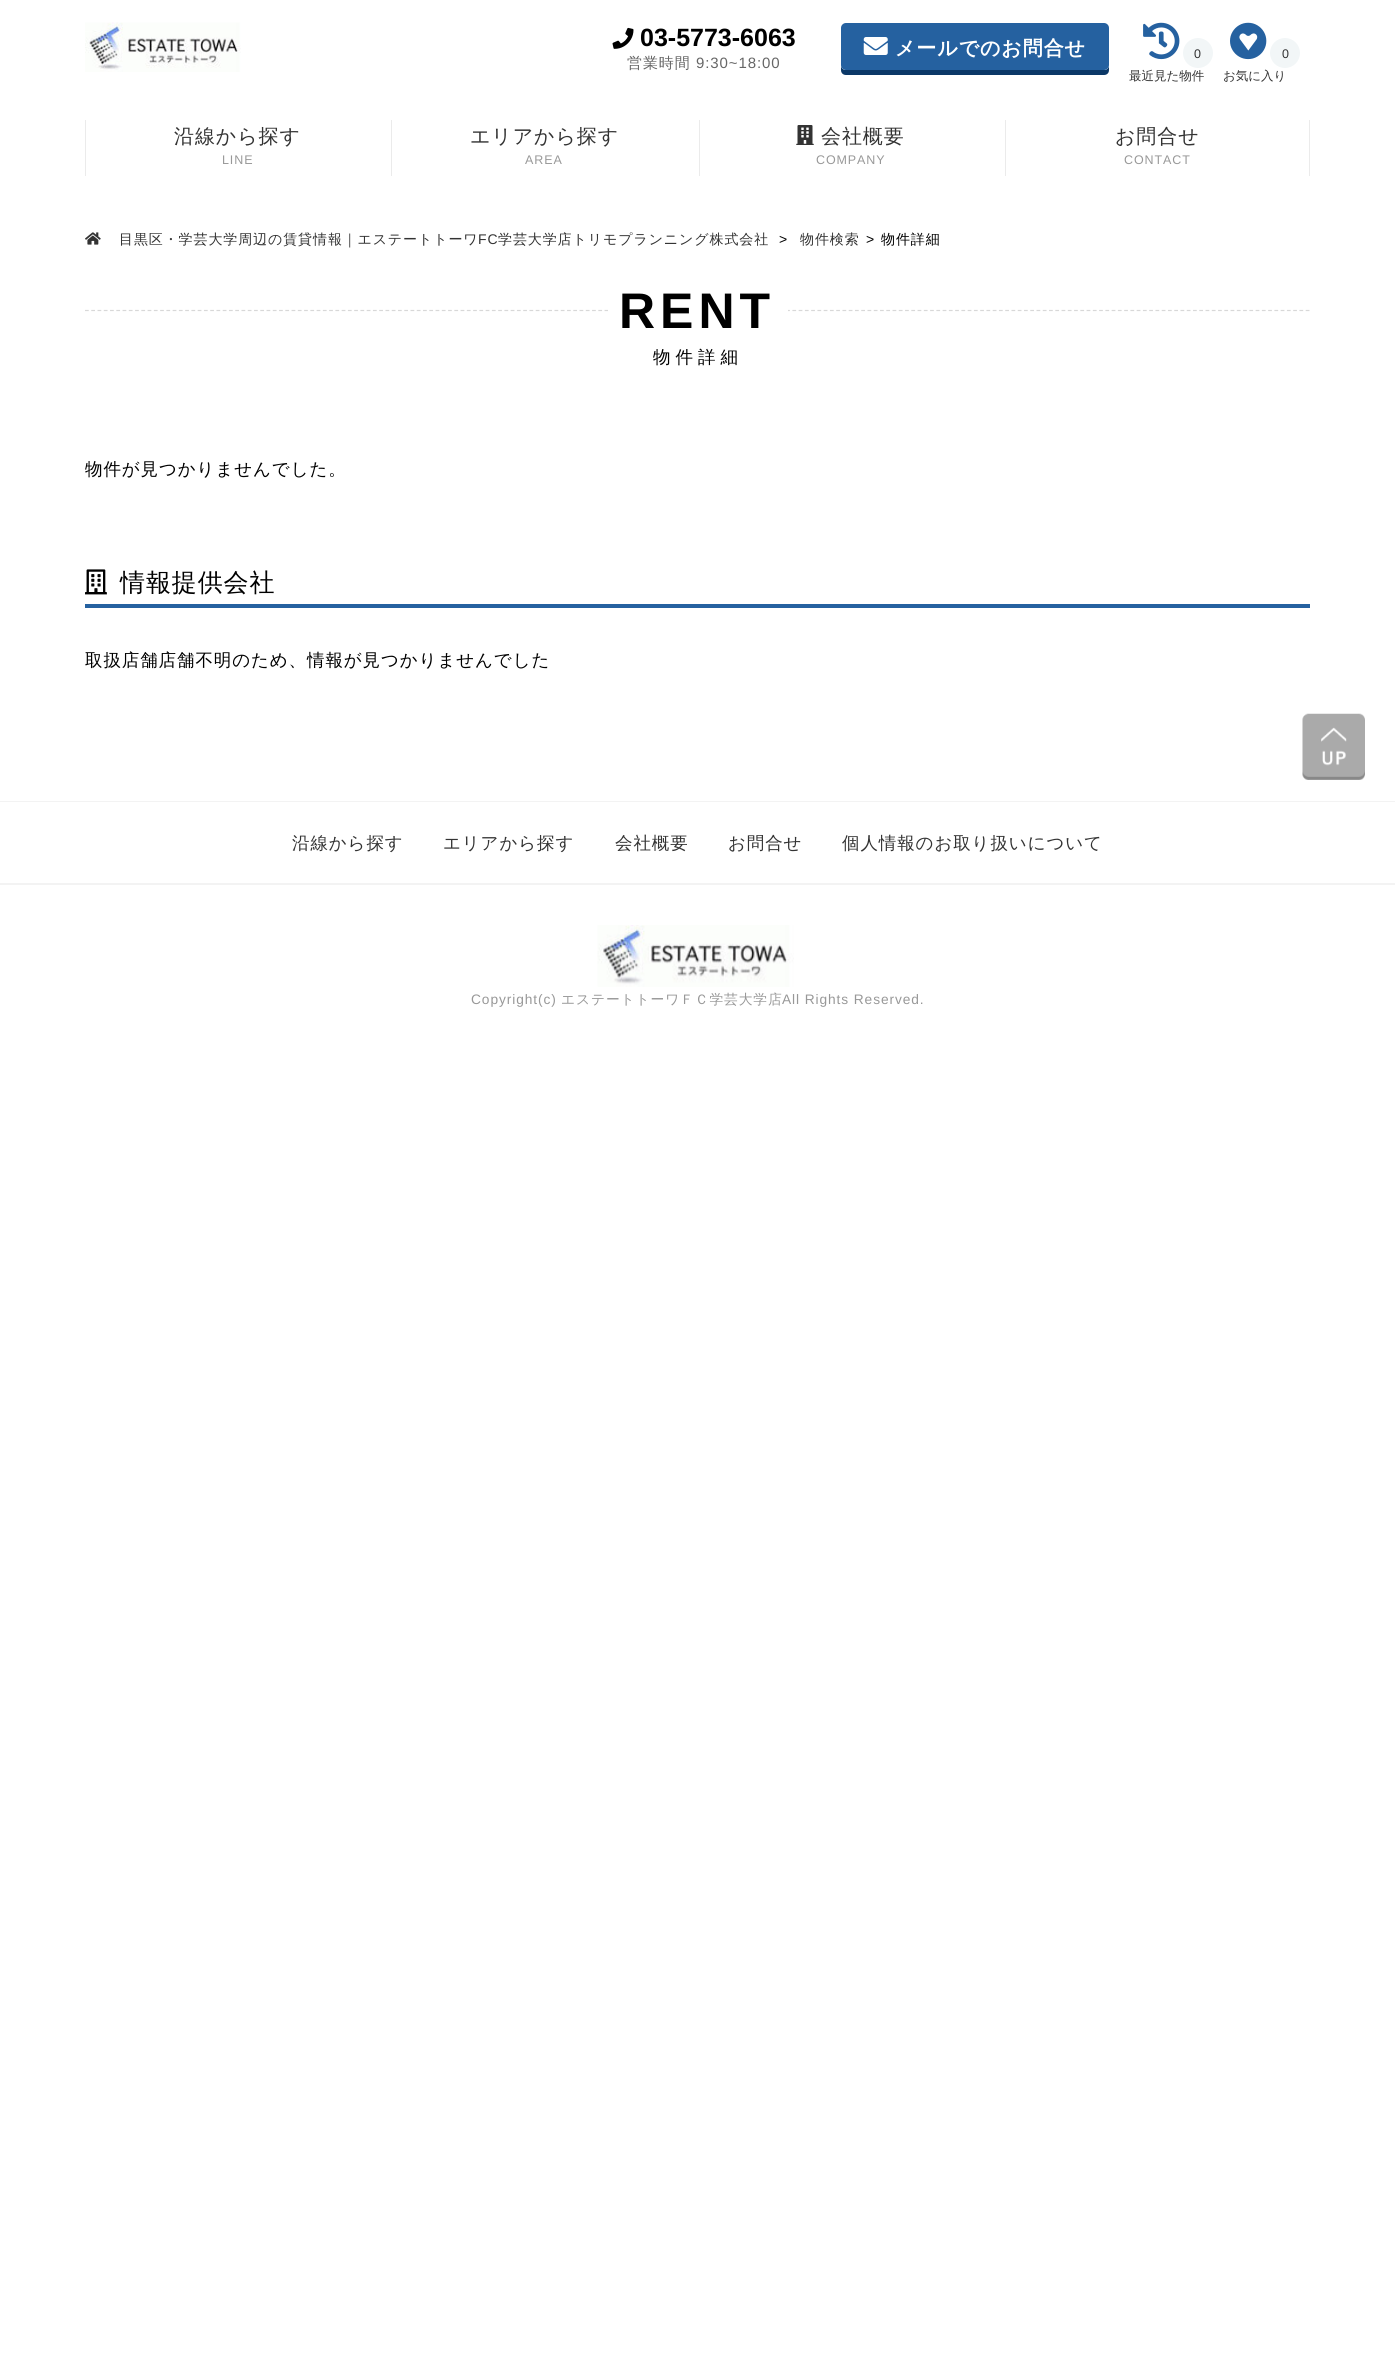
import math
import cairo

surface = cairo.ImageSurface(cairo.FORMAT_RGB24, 1395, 2357)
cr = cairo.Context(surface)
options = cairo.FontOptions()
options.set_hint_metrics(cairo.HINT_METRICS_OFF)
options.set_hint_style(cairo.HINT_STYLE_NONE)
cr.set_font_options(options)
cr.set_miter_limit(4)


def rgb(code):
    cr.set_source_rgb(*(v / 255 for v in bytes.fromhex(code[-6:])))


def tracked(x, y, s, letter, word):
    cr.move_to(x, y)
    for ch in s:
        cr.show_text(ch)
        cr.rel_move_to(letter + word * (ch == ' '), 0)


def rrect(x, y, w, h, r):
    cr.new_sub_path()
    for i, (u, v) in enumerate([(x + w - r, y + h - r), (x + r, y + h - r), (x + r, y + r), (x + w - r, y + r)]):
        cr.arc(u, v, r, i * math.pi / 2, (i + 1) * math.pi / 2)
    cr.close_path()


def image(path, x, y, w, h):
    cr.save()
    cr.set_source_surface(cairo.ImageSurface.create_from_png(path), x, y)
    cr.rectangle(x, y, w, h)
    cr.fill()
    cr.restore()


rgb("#ffffff")
cr.paint()
image("img/1.png", 85, 22, 156, 50)
image("img/2.png", 612, 27, 22, 22)
rgb("#0b3867")
cr.new_path()
cr.move_to(841, 31)
cr.line_to(841, 70)
cr.curve_to(841, 73, 843, 75, 846, 75)
cr.line_to(1104, 75)
cr.curve_to(1107, 75, 1109, 73, 1109, 70)
cr.line_to(1109, 31)
cr.line_to(1109, 65)
cr.curve_to(1109, 68, 1107, 70, 1104, 70)
cr.line_to(846, 70)
cr.curve_to(843, 70, 841, 68, 841, 65)
cr.close_path()
cr.fill()
rgb("#2561a0")
rrect(841, 23, 268, 47, 5)
cr.fill()
image("img/3.png", 863, 37, 25, 18)
image("img/4.png", 1143, 22, 37, 38)
rgb("#f2f6f7")
cr.arc(1198, 53, 15, 0, 2 * math.pi)
cr.fill()
image("img/5.png", 1230, 22, 37, 38)
cr.arc(1285, 53, 15, 0, 2 * math.pi)
cr.fill()
for x, y, w, h, color in [
    (85, 120, 1, 56, "#ebebeb"),
    (391, 120, 1, 56, "#ebebeb"),
    (699, 120, 1, 56, "#ebebeb"),
]:
    rgb(color)
    cr.rectangle(x, y, w, h)
    cr.fill()
image("img/6.png", 796, 125, 18, 20)
cr.rectangle(1309, 120, 1, 56)
cr.fill()
cr.rectangle(1005, 120, 1, 56)
cr.fill()
image("img/7.png", 85, 232, 16, 13)
cr.new_path()
cr.move_to(85, 310.5)
cr.line_to(1310, 310.5)
rgb("#d8d8d8")
cr.set_line_width(1.2)
cr.set_dash([3.75, 2.51])
cr.stroke()
rgb("#ffffff")
cr.rectangle(608, 309, 180, 3)
cr.fill()
rgb("#2561a0")
cr.rectangle(85, 604, 1225, 4)
cr.fill()
image("img/8.png", 85, 569, 22, 26)
image("img/9.png", 1302, 713, 63, 67)
rgb("#f3f3f3")
cr.rectangle(0, 801, 1395, 1)
cr.fill()
cr.rectangle(0, 883, 1395, 2)
cr.fill()
image("img/10.png", 597, 925, 197, 62)
cr.select_font_face("Liberation Sans", cairo.FONT_SLANT_NORMAL, cairo.FONT_WEIGHT_BOLD)
cr.set_font_size(25)
rgb("#000000")
cr.move_to(640, 46)
cr.show_text("03-5773-6063")
cr.select_font_face("WenQuanYi Zen Hei Medium")
cr.set_font_size(15)
rgb("#666666")
tracked(627, 68, "営業時間", 0.9, 0)
cr.select_font_face("Liberation Sans")
tracked(696, 68, "9:30~18:00", 0.9, 0)
cr.select_font_face("WenQuanYi Zen Hei", cairo.FONT_SLANT_NORMAL, cairo.FONT_WEIGHT_BOLD)
cr.set_font_size(20)
rgb("#ffffff")
tracked(895, 55, "メールでのお問合せ", 0.9, 0)
cr.select_font_face("Liberation Sans")
cr.set_font_size(12.5)
rgb("#333333")
cr.move_to(1194, 58)
cr.show_text("0")
cr.select_font_face("WenQuanYi Zen Hei Medium")
cr.move_to(1129, 80)
cr.show_text("最近見た物件")
cr.select_font_face("Liberation Sans")
cr.move_to(1282, 58)
cr.show_text("0")
cr.select_font_face("WenQuanYi Zen Hei Medium")
cr.move_to(1223, 80)
cr.show_text("お気に入り")
cr.set_font_size(20)
tracked(174, 143, "沿線から探す", 0.9, 0)
cr.select_font_face("Liberation Sans")
cr.set_font_size(12.5)
rgb("#989898")
tracked(222, 164, "LINE", 0.9, 0)
cr.select_font_face("WenQuanYi Zen Hei Medium")
cr.set_font_size(20)
rgb("#333333")
tracked(470, 143, "エリアから探す", 0.9, 0)
cr.select_font_face("Liberation Sans")
cr.set_font_size(12.5)
rgb("#989898")
tracked(525, 164, "AREA", 0.9, 0)
cr.select_font_face("WenQuanYi Zen Hei Medium")
cr.set_font_size(20)
rgb("#333333")
tracked(821, 143, "会社概要", 0.9, 0)
cr.select_font_face("Liberation Sans")
cr.set_font_size(12.5)
rgb("#989898")
tracked(816, 164, "COMPANY", 0.9, 0)
cr.select_font_face("WenQuanYi Zen Hei Medium")
cr.set_font_size(20)
rgb("#333333")
tracked(1115, 143, "お問合せ", 0.9, 0)
cr.select_font_face("Liberation Sans")
cr.set_font_size(12.5)
rgb("#989898")
tracked(1124, 164, "CONTACT", 0.9, 0)
cr.select_font_face("WenQuanYi Zen Hei Medium")
cr.set_font_size(14)
rgb("#333333")
tracked(119, 244, "目黒区・学芸大学周辺の賃貸情報｜エステートトーワ", 0.9, 0)
cr.select_font_face("Liberation Sans")
tracked(478, 244, "FC", 0.9, 0)
cr.select_font_face("WenQuanYi Zen Hei Medium")
tracked(498, 244, "学芸大学店トリモプランニング株式会社", 0.9, 0)
cr.select_font_face("Liberation Sans")
rgb("#000000")
tracked(779, 244, ">", 0.9, 0)
cr.select_font_face("WenQuanYi Zen Hei Medium")
rgb("#333333")
tracked(800, 244, "物件検索", 0.9, 0)
cr.select_font_face("Liberation Sans")
rgb("#000000")
tracked(866, 244, ">", 0.9, 0)
cr.select_font_face("WenQuanYi Zen Hei Medium")
tracked(881, 244, "物件詳細", 0.9, 0)
cr.select_font_face("Liberation Sans", cairo.FONT_SLANT_NORMAL, cairo.FONT_WEIGHT_BOLD)
cr.set_font_size(50)
tracked(619, 328, "RENT", 5, 0)
cr.select_font_face("WenQuanYi Zen Hei Medium")
cr.set_font_size(17.5)
tracked(653, 363, "物件詳細", 5, 0)
tracked(85, 475, "物件が見つかりませんでした。", 0.9, 0)
cr.set_font_size(25)
tracked(120, 591, "情報提供会社", 0.9, 0)
cr.set_font_size(17.5)
tracked(85, 666, "取扱店舗店舗不明のため、情報が見つかりませんでした", 0.9, 0)
rgb("#333333")
for x, y, s in [
    (292, 849, "沿線から探す"),
    (443, 849, "エリアから探す"),
    (615, 849, "会社概要"),
    (728, 849, "お問合せ"),
    (842, 849, "個人情報のお取り扱いについて"),
]:
    tracked(x, y, s, 0.9, 0)
cr.select_font_face("Liberation Sans")
cr.set_font_size(13.75)
rgb("#989898")
tracked(471, 1004, "Copyright(c)", 0.9, 0)
cr.select_font_face("WenQuanYi Zen Hei Medium")
tracked(561, 1004, "エステートトーワＦＣ学芸大学店", 0.9, 0)
cr.select_font_face("Liberation Sans")
tracked(782, 1004, "All Rights Reserved.", 0.9, 0)
surface.write_to_png("page.png")
